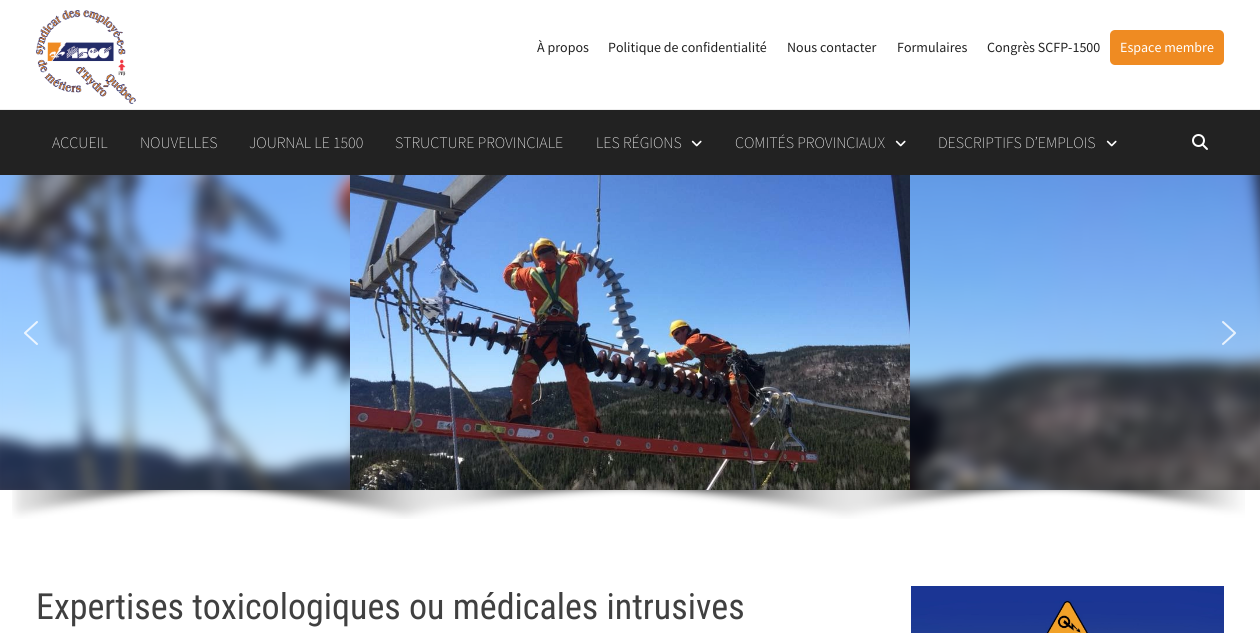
import math
import cairo

surface = cairo.ImageSurface(cairo.FORMAT_RGB24, 1260, 633)
cr = cairo.Context(surface)
options = cairo.FontOptions()
options.set_hint_metrics(cairo.HINT_METRICS_OFF)
options.set_hint_style(cairo.HINT_STYLE_NONE)
cr.set_font_options(options)
cr.set_miter_limit(4)


def rgb(code):
    cr.set_source_rgb(*(v / 255 for v in bytes.fromhex(code[-6:])))


def rrect(x, y, w, h, r):
    cr.new_sub_path()
    for i, (u, v) in enumerate([(x + w - r, y + h - r), (x + r, y + h - r), (x + r, y + r), (x + w - r, y + r)]):
        cr.arc(u, v, r, i * math.pi / 2, (i + 1) * math.pi / 2)
    cr.close_path()


def image(path, x, y, w, h):
    cr.save()
    cr.set_source_surface(cairo.ImageSurface.create_from_png(path), x, y)
    cr.rectangle(x, y, w, h)
    cr.fill()
    cr.restore()


rgb("#ffffff")
cr.paint()
rgb("#eeeeee")
cr.rectangle(0, 109, 1260, 1)
cr.fill()
image("img/1.png", 36, 10, 100, 94)
rgb("#ef8b22")
rrect(1110, 30, 114, 35, 5)
cr.fill()
rgb("#222222")
cr.rectangle(0, 110, 1260, 65)
cr.fill()
image("img/2.png", 691, 140, 11, 7)
image("img/2.png", 895, 140, 11, 7)
image("img/2.png", 1106, 140, 11, 7)
image("img/3.png", 1192, 134, 16, 16)
image("img/4.png", 0, 175, 1260, 315)
image("img/5.png", 350, 175, 560, 315)
image("img/6.png", 24, 321, 14, 24)
image("img/7.png", 1222, 321, 14, 24)
image("img/8.png", 12, 490, 1233, 29)
image("img/9.png", 911, 586, 313, 47)
cr.select_font_face("Source Sans Pro")
cr.set_font_size(14)
for x, y, s in [
    (537, 52, "À propos"),
    (608, 52, "Politique de confidentialité"),
    (787, 52, "Nous contacter"),
    (897, 52, "Formulaires"),
    (987, 52, "Congrès SCFP-1500"),
]:
    cr.move_to(x, y)
    cr.show_text(s)
rgb("#ffffff")
cr.move_to(1120, 52)
cr.show_text("Espace membre")
cr.select_font_face("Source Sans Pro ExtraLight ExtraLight")
cr.set_font_size(16)
for x, y, s in [
    (52, 148, "ACCUEIL"),
    (140, 148, "NOUVELLES"),
    (249, 148, "JOURNAL LE 1500"),
    (395, 148, "STRUCTURE PROVINCIALE"),
    (596, 148, "LES RÉGIONS"),
    (735, 148, "COMITÉS PROVINCIAUX"),
    (938, 148, "DESCRIPTIFS D’EMPLOIS"),
]:
    cr.move_to(x, y)
    cr.show_text(s)
cr.select_font_face("Roboto Condensed")
cr.set_font_size(36)
rgb("#404040")
cr.move_to(36, 619)
cr.show_text("Expertises toxicologiques ou médicales intrusives")
surface.write_to_png("page.png")
